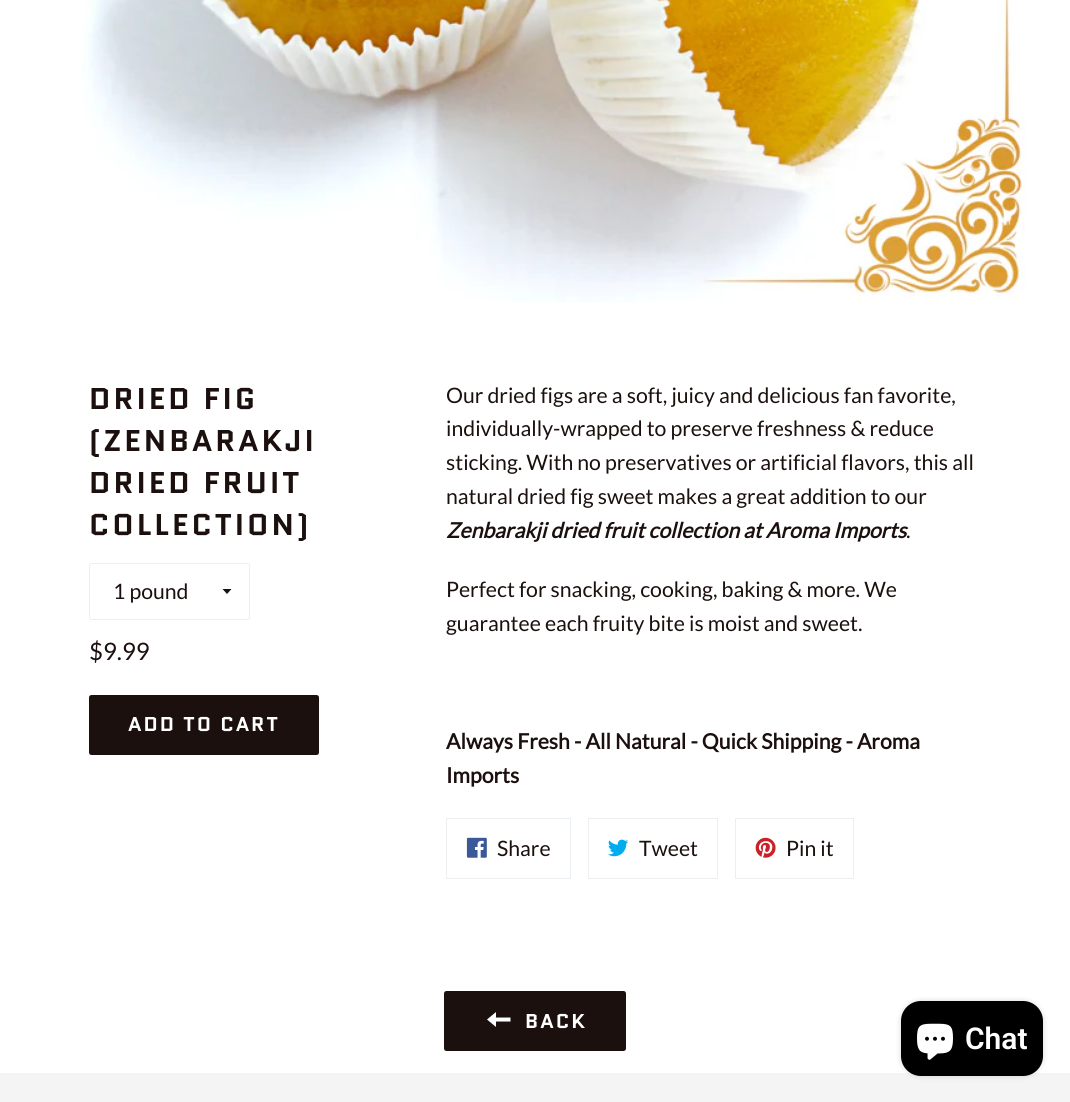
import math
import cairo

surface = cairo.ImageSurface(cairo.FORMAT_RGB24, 1070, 1102)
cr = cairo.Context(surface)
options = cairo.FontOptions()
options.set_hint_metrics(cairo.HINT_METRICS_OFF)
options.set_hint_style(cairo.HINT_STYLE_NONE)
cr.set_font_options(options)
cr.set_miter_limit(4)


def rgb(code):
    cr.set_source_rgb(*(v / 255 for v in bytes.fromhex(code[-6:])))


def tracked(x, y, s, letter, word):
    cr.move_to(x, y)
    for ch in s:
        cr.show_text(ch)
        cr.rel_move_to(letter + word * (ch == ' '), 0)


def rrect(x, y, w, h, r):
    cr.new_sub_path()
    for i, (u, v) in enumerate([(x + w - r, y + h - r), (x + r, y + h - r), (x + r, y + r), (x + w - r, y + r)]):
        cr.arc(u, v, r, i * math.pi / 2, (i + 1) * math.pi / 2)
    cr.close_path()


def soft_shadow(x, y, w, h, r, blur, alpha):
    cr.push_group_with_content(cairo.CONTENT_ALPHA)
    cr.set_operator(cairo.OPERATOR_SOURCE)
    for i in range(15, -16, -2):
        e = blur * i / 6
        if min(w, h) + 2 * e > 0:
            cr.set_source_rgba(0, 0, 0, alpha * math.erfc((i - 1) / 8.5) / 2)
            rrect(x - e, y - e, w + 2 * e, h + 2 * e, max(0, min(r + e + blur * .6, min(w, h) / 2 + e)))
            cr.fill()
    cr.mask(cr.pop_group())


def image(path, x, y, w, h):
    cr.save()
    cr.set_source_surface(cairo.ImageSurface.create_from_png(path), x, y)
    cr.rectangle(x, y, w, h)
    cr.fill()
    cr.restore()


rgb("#ffffff")
cr.paint()
image("img/1.png", 82, 0, 944, 303)
rrect(89.5, 563.5, 160, 56, 2)
rgb("#eceff1")
cr.set_line_width(1)
cr.stroke()
rgb("#1b100e")
cr.new_path()
cr.move_to(222.5, 589)
cr.line_to(227, 594)
cr.line_to(231.5, 589)
cr.close_path()
cr.fill()
rrect(89, 695, 230, 60, 2.5)
cr.fill()
cr.rectangle(446.5, 818.5, 124, 60)
rgb("#eceff1")
cr.stroke()
image("img/2.png", 466, 837, 21, 21)
cr.rectangle(588.5, 818.5, 129, 60)
cr.stroke()
image("img/3.png", 608, 839, 21, 18)
cr.rectangle(735.5, 818.5, 118, 60)
cr.stroke()
image("img/4.png", 755, 837, 21, 21)
rgb("#1b100e")
rrect(444, 991, 182, 60, 2.5)
cr.fill()
rgb("#ffffff")
cr.new_path()
cr.move_to(496, 1017.5)
cr.line_to(496, 1012)
cr.line_to(487, 1019.5)
cr.line_to(496, 1027)
cr.line_to(496, 1021.5)
cr.line_to(510.5, 1021.5)
cr.line_to(510.5, 1017.5)
cr.close_path()
cr.fill()
rgb("#f4f4f4")
cr.rectangle(0, 1073, 1070, 29)
cr.fill()
rgb("#000000")
soft_shadow(901, 1001, 142, 75, 20, 3, 0.15)
rgb("#000000")
rrect(901, 1001, 142, 75, 20)
cr.fill()
image("img/5.png", 917, 1023, 36, 37)
cr.select_font_face("Quantico", cairo.FONT_SLANT_NORMAL, cairo.FONT_WEIGHT_BOLD)
cr.set_font_size(30)
rgb("#1b100e")
for x, y, s in [
    (89, 409, "DRIED FIG"),
    (89, 451, "(ZENBARAKJI"),
    (89, 493, "DRIED FRUIT"),
    (89, 535, "COLLECTION)"),
]:
    tracked(x, y, s, 3, 0)
cr.select_font_face("Lato")
cr.set_font_size(21.25)
cr.move_to(113, 599)
cr.show_text("1 pound")
cr.set_font_size(24)
cr.move_to(89, 660)
cr.show_text("$9.99")
cr.select_font_face("Quantico", cairo.FONT_SLANT_NORMAL, cairo.FONT_WEIGHT_BOLD)
cr.set_font_size(20)
rgb("#ffffff")
tracked(128, 731, "ADD TO CART", 2, 0)
cr.select_font_face("Lato")
cr.set_font_size(21.25)
rgb("#1b100e")
for x, y, s in [
    (446, 403, "Our dried figs are a soft, juicy and delicious fan favorite,"),
    (446, 436, "individually-wrapped to preserve freshness & reduce"),
    (446, 470, "sticking. With no preservatives or artificial flavors, this all"),
    (446, 504, "natural dried fig sweet makes a great addition to our"),
]:
    cr.move_to(x, y)
    cr.show_text(s)
cr.select_font_face("Lato", cairo.FONT_SLANT_ITALIC, cairo.FONT_WEIGHT_BOLD)
cr.move_to(446, 538)
cr.show_text("Zenbarakji dried fruit collection at Aroma Imports")
cr.select_font_face("Lato")
for x, y, s in [
    (906, 538, "."),
    (446, 597, "Perfect for snacking, cooking, baking & more. We"),
    (446, 631, "guarantee each fruity bite is moist and sweet."),
]:
    cr.move_to(x, y)
    cr.show_text(s)
cr.select_font_face("Lato", cairo.FONT_SLANT_NORMAL, cairo.FONT_WEIGHT_BOLD)
cr.move_to(446, 749)
cr.show_text("Always Fresh - All Natural - Quick Shipping - Aroma")
cr.move_to(446, 783)
cr.show_text("Imports")
cr.select_font_face("Lato")
for x, y, s in [
    (497, 856, "Share"),
    (639, 856, "Tweet"),
    (786, 856, "Pin it"),
]:
    cr.move_to(x, y)
    cr.show_text(s)
cr.select_font_face("Quantico", cairo.FONT_SLANT_NORMAL, cairo.FONT_WEIGHT_BOLD)
cr.set_font_size(20)
rgb("#ffffff")
tracked(525, 1028, "BACK", 2, 0)
cr.select_font_face("Roboto SemiBold")
cr.set_font_size(30)
cr.move_to(965, 1049)
cr.show_text("Chat")
surface.write_to_png("page.png")
